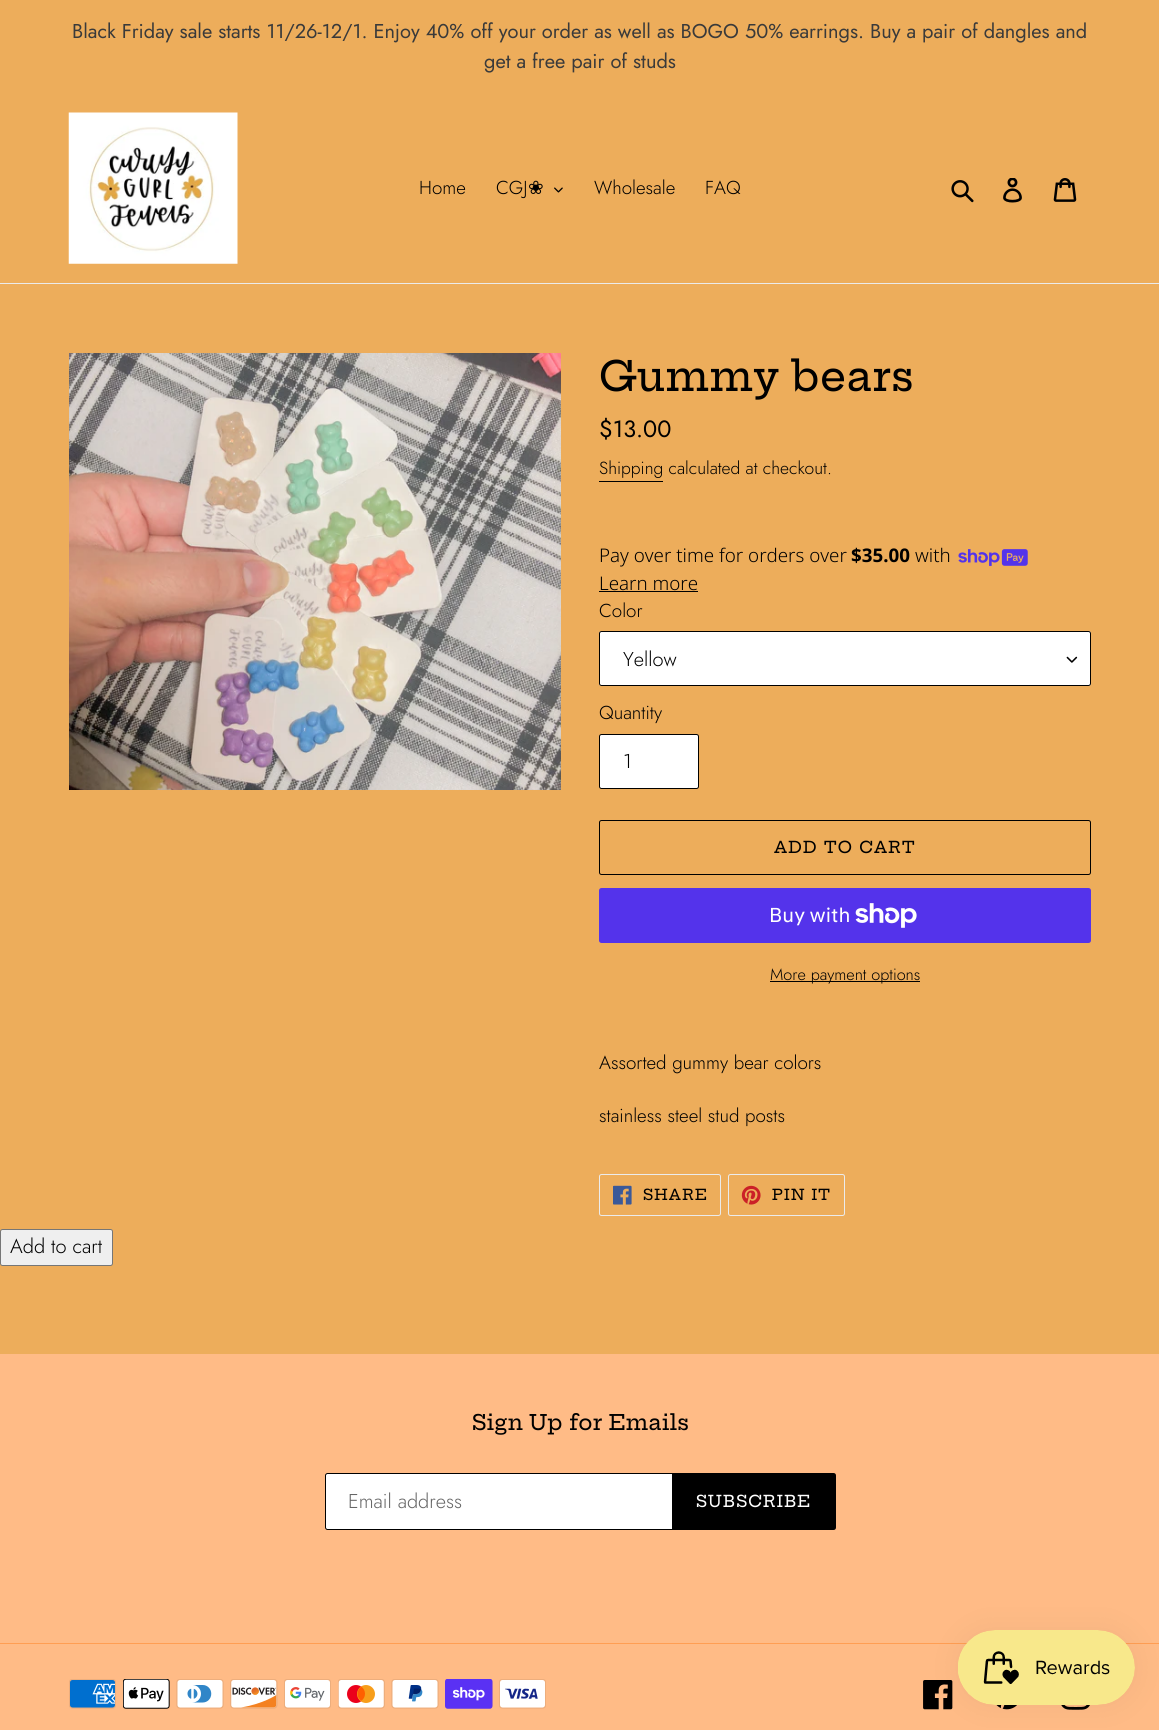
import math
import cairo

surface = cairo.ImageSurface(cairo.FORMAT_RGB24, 1159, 1730)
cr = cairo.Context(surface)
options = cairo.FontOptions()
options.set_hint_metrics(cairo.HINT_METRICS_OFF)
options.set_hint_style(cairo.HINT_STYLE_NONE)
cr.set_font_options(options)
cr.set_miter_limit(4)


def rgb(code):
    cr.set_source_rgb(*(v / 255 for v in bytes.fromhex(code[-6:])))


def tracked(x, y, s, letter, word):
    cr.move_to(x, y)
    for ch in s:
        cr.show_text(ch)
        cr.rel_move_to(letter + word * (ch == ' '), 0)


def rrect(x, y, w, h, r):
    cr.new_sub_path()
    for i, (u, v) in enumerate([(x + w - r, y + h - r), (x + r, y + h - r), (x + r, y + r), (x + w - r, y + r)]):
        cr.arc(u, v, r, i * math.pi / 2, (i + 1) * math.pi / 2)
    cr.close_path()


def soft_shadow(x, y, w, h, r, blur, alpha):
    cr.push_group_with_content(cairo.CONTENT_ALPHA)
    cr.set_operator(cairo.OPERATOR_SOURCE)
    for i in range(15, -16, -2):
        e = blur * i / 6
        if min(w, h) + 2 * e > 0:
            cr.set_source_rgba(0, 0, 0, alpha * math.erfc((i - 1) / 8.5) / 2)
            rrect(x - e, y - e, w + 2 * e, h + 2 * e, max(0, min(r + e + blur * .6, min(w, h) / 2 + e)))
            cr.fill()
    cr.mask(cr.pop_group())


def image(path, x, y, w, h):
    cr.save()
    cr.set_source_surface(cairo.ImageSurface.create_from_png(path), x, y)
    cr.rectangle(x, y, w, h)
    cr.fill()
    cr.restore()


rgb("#edad5b")
cr.paint()
rgb("#ebebeb")
cr.rectangle(0, 283, 1159, 1)
cr.fill()
image("img/1.png", 68, 112, 170, 152)
image("img/2.png", 554, 187, 9, 6)
image("img/3.png", 951, 180, 23, 23)
image("img/4.png", 1003, 178, 19, 25)
image("img/5.png", 1053, 178, 24, 24)
image("img/6.png", 69, 353, 492, 437)
rgb("#000000")
cr.rectangle(599, 481, 64, 1)
cr.fill()
image("img/7.png", 958, 549, 70, 17)
cr.rectangle(599, 591, 99, 1)
cr.fill()
rgb("#ffffff")
rrect(599, 631, 492, 55, 2.5)
cr.fill()
image("img/8.png", 1066, 656, 12, 7)
rrect(599.5, 631.5, 491, 54, 2)
rgb("#000000")
cr.set_line_width(1)
cr.stroke()
rgb("#ffffff")
rrect(599.5, 734.5, 99, 54, 2)
cr.fill_preserve()
rgb("#000000")
cr.stroke()
rrect(599.5, 820.5, 491, 54, 2)
cr.stroke()
rgb("#5433eb")
rrect(599, 888, 492, 55, 2.5)
cr.fill()
image("img/9.png", 855, 903, 62, 25)
rgb("#000000")
cr.rectangle(770, 981, 150, 1)
cr.fill()
rrect(599.5, 1174.5, 121, 41, 2)
rgb("#ebebeb")
cr.stroke()
image("img/10.png", 613, 1185, 19, 20)
rrect(728.5, 1174.5, 116, 41, 2)
cr.stroke()
image("img/11.png", 741, 1185, 20, 20)
rgb("#efefef")
rrect(0.5, 1229.5, 112, 36, 2)
cr.fill_preserve()
rgb("#767676")
cr.stroke()
rgb("#ffbb86")
cr.rectangle(0, 1354, 1159, 376)
cr.fill()
rgb("#ffffff")
cr.new_path()
cr.move_to(327.5, 1473.5)
cr.line_to(672.5, 1473.5)
cr.line_to(672.5, 1529.5)
cr.line_to(327.5, 1529.5)
cr.curve_to(326.5, 1529.5, 325.5, 1528.5, 325.5, 1527.5)
cr.line_to(325.5, 1475.5)
cr.curve_to(325.5, 1474.5, 326.5, 1473.5, 327.5, 1473.5)
cr.close_path()
cr.fill_preserve()
rgb("#000000")
cr.stroke()
cr.new_path()
cr.move_to(673, 1473)
cr.line_to(833.5, 1473)
cr.curve_to(835, 1473, 836, 1474, 836, 1475.5)
cr.line_to(836, 1527.5)
cr.curve_to(836, 1529, 835, 1530, 833.5, 1530)
cr.line_to(673, 1530)
cr.close_path()
cr.fill()
rgb("#ff9e53")
cr.rectangle(0, 1643, 1159, 1)
cr.fill()
image("img/12.png", 69, 1679, 47, 30)
image("img/13.png", 123, 1679, 47, 30)
image("img/14.png", 176, 1679, 48, 30)
image("img/15.png", 230, 1679, 48, 30)
image("img/16.png", 284, 1679, 47, 30)
image("img/17.png", 338, 1679, 47, 30)
image("img/18.png", 391, 1679, 48, 30)
image("img/19.png", 445, 1679, 48, 30)
image("img/20.png", 499, 1679, 47, 30)
image("img/21.png", 923, 1680, 30, 30)
image("img/22.png", 996, 1705, 21, 5)
image("img/23.png", 1061, 1705, 29, 5)
rgb("#000000")
soft_shadow(958, 1630, 177, 75, 37.5, 15.5, 0.05)
image("img/24.png", 958, 1630, 177, 75)
cr.select_font_face("Jost")
cr.set_font_size(20)
rgb("#3a3a3a")
cr.move_to(72, 38)
cr.show_text("Black Friday sale starts 11/26-12/1. Enjoy 40% off your order as well as BOGO 50% earrings. Buy a pair of dangles and")
cr.move_to(484, 68)
cr.show_text("get a free pair of studs")
cr.select_font_face("Jost Light")
cr.set_font_size(18.75)
rgb("#000000")
cr.move_to(419, 194)
cr.show_text("Home")
cr.move_to(496, 194)
cr.show_text("CGJ")
cr.select_font_face("DejaVu Sans")
cr.move_to(528, 194)
cr.show_text("❀")
cr.select_font_face("Jost Light")
cr.move_to(594, 194)
cr.show_text("Wholesale")
cr.move_to(705, 194)
cr.show_text("FAQ")
cr.select_font_face("Hepta Slab Medium")
cr.set_font_size(41.25)
cr.move_to(599, 391)
cr.show_text("Gummy bears")
cr.select_font_face("Jost")
cr.set_font_size(23.5)
cr.move_to(599, 437)
cr.show_text("$13.00")
cr.select_font_face("Jost Light")
cr.set_font_size(17.5)
cr.move_to(599, 474)
cr.show_text("Shipping calculated at checkout.")
cr.select_font_face("Noto Sans Light")
cr.set_font_size(18.75)
cr.move_to(599, 562)
cr.show_text("Pay over time for orders over")
cr.select_font_face("Noto Sans", cairo.FONT_SLANT_NORMAL, cairo.FONT_WEIGHT_BOLD)
cr.move_to(851, 562)
cr.show_text("$35.00")
cr.select_font_face("Noto Sans Light")
cr.move_to(915, 562)
cr.show_text("with")
cr.move_to(599, 590)
cr.show_text("Learn more")
cr.select_font_face("Jost Light")
cr.move_to(599, 617)
cr.show_text("Color")
cr.set_font_size(20)
cr.move_to(623, 666)
cr.show_text("Yellow")
cr.set_font_size(18.75)
cr.move_to(599, 719)
cr.show_text("Quantity")
cr.set_font_size(20)
cr.move_to(623, 768)
cr.show_text("1")
cr.select_font_face("Hepta Slab Medium")
cr.set_font_size(16.25)
tracked(774, 853, "ADD TO CART", 1.25, 0)
cr.select_font_face("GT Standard")
cr.set_font_size(20)
rgb("#ffffff")
cr.move_to(769, 922)
cr.show_text("Buy with")
cr.select_font_face("Jost Light")
cr.set_font_size(16.25)
rgb("#000000")
cr.move_to(770, 980)
cr.show_text("More payment options")
cr.set_font_size(18.75)
cr.move_to(599, 1069)
cr.show_text("Assorted gummy bear colors")
cr.move_to(599, 1122)
cr.show_text("stainless steel stud posts")
cr.select_font_face("Hepta Slab Medium")
cr.set_font_size(15)
tracked(643, 1200, "SHARE", 1.25, 0)
tracked(772, 1200, "PIN IT", 1.25, 0)
cr.select_font_face("Jost Light")
cr.set_font_size(20)
cr.move_to(10, 1253)
cr.show_text("Add to cart")
cr.select_font_face("Hepta Slab Medium")
cr.set_font_size(21.25)
cr.move_to(472, 1430)
cr.show_text("Sign Up for Emails")
cr.select_font_face("Jost Light")
cr.set_font_size(20)
rgb("#666666")
cr.move_to(348, 1508)
cr.show_text("Email address")
cr.select_font_face("Hepta Slab Medium")
cr.set_font_size(16.25)
rgb("#ffffff")
tracked(696, 1507, "SUBSCRIBE", 1.25, 0)
surface.write_to_png("page.png")
